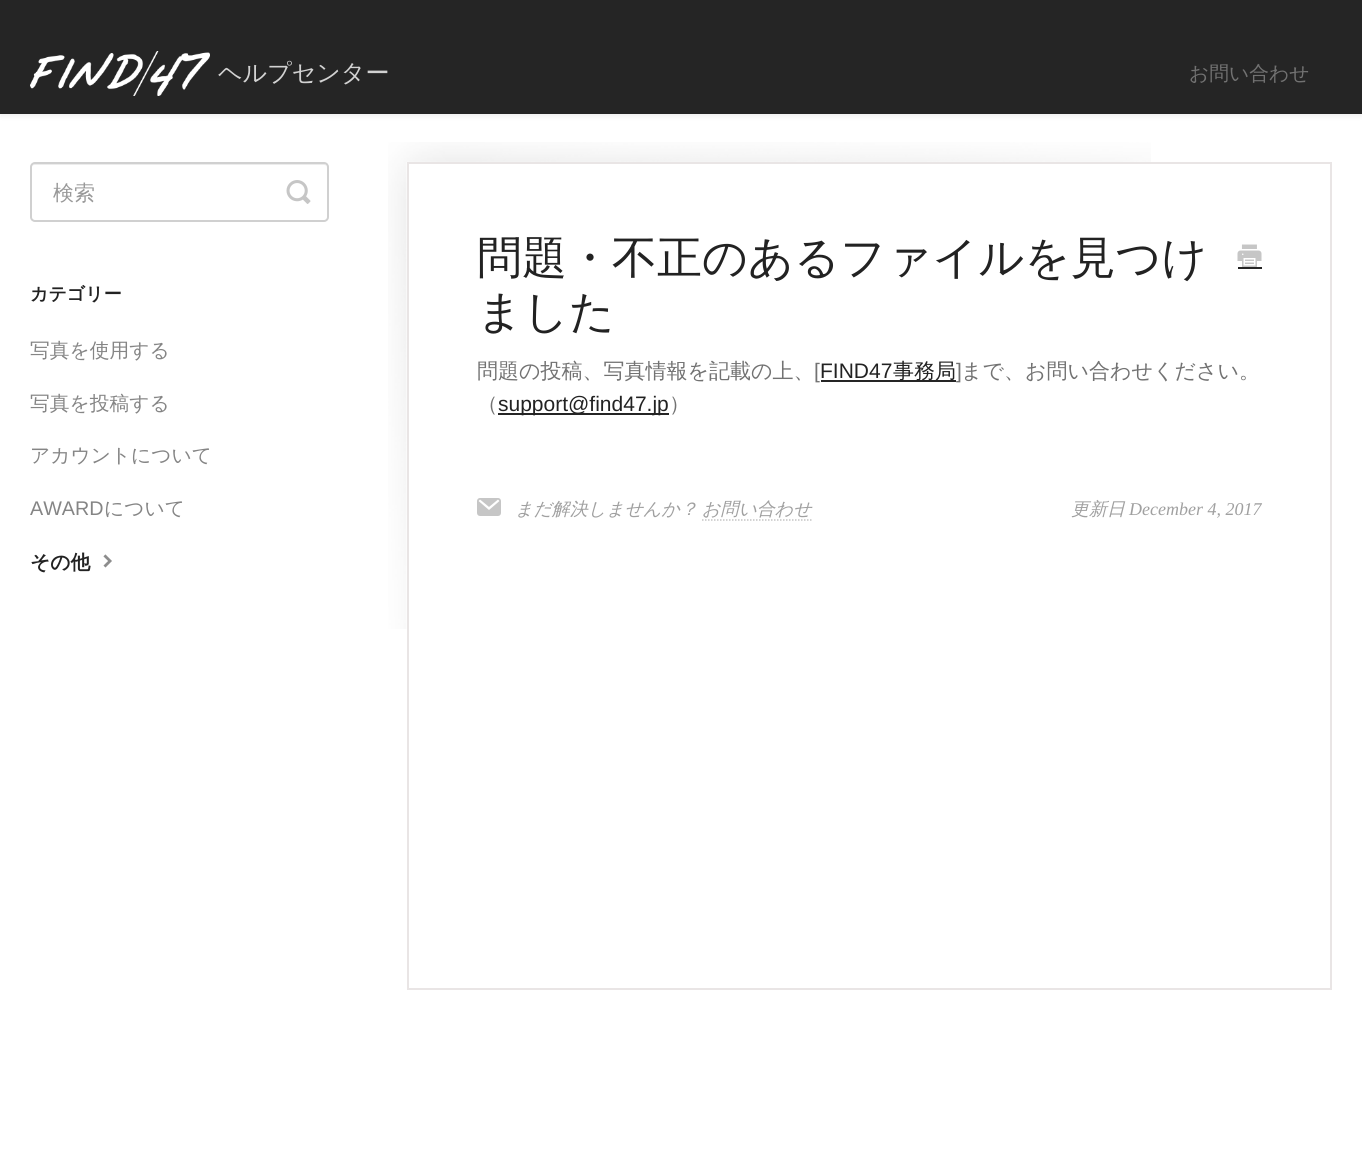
import math
import cairo

surface = cairo.ImageSurface(cairo.FORMAT_RGB24, 1362, 1175)
cr = cairo.Context(surface)
options = cairo.FontOptions()
options.set_hint_metrics(cairo.HINT_METRICS_OFF)
options.set_hint_style(cairo.HINT_STYLE_NONE)
cr.set_font_options(options)
cr.set_miter_limit(4)


def rgb(code):
    cr.set_source_rgb(*(v / 255 for v in bytes.fromhex(code[-6:])))


def rrect(x, y, w, h, r):
    cr.new_sub_path()
    for i, (u, v) in enumerate([(x + w - r, y + h - r), (x + r, y + h - r), (x + r, y + r), (x + w - r, y + r)]):
        cr.arc(u, v, r, i * math.pi / 2, (i + 1) * math.pi / 2)
    cr.close_path()


def soft_shadow(x, y, w, h, r, blur, alpha):
    cr.push_group_with_content(cairo.CONTENT_ALPHA)
    cr.set_operator(cairo.OPERATOR_SOURCE)
    for i in range(15, -16, -2):
        e = blur * i / 6
        if min(w, h) + 2 * e > 0:
            cr.set_source_rgba(0, 0, 0, alpha * math.erfc((i - 1) / 8.5) / 2)
            rrect(x - e, y - e, w + 2 * e, h + 2 * e, max(0, min(r + e + blur * .6, min(w, h) / 2 + e)))
            cr.fill()
    cr.mask(cr.pop_group())


def image(path, x, y, w, h):
    cr.save()
    cr.set_source_surface(cairo.ImageSurface.create_from_png(path), x, y)
    cr.rectangle(x, y, w, h)
    cr.fill()
    cr.restore()


rgb("#ffffff")
cr.paint()
rgb("#000000")
soft_shadow(0, 2, 1362, 114, 0, 3, 0.07)
rgb("#252525")
cr.rectangle(0, 0, 1362, 114)
cr.fill()
image("img/1.png", 30, 51, 180, 45)
rgb("#ececec")
cr.new_path()
cr.move_to(34, 165)
cr.line_to(324, 165)
cr.curve_to(326, 165, 327, 166, 327, 168)
cr.line_to(326, 165)
cr.line_to(325, 164)
cr.line_to(35, 164)
cr.curve_to(33, 164, 32, 166, 32, 168)
cr.curve_to(32, 166, 33, 165, 34, 165)
cr.close_path()
cr.fill()
rrect(31, 163, 297, 58, 4)
rgb("#d0d0d0")
cr.stroke()
image("img/2.png", 286, 180, 25, 24)
image("img/3.png", 103, 554, 9, 14)
image("img/4.png", 388, 142, 763, 487)
cr.rectangle(408, 163, 923, 826)
rgb("#e9e5e5")
cr.stroke()
image("img/5.png", 1237, 244, 25, 23)
for x, y, w, h, color in [
    (1238, 267, 24, 2, "#252525"),
    (821, 380, 135, 2, "#252525"),
    (498, 413, 171, 2, "#252525"),
]:
    rgb(color)
    cr.rectangle(x, y, w, h)
    cr.fill()
image("img/6.png", 477, 498, 24, 18)
cr.new_path()
cr.move_to(702, 520)
cr.line_to(811.5, 520)
rgb("#c5c5c5")
cr.set_line_width(1.5)
cr.set_dash([1.5, 1.5])
cr.stroke()
cr.select_font_face("WenQuanYi Zen Hei Medium")
cr.set_font_size(24)
rgb("#d2d2d2")
cr.move_to(218, 81)
cr.show_text("ヘルプセンター")
cr.set_font_size(19.75)
rgb("#727272")
cr.move_to(1189, 80)
cr.show_text("お問い合わせ")
cr.set_font_size(21)
rgb("#999999")
cr.move_to(53, 200)
cr.show_text("検索")
cr.select_font_face("WenQuanYi Zen Hei", cairo.FONT_SLANT_NORMAL, cairo.FONT_WEIGHT_BOLD)
cr.set_font_size(18)
rgb("#222222")
cr.move_to(30, 300)
cr.show_text("カテゴリー")
cr.select_font_face("WenQuanYi Zen Hei Medium")
cr.set_font_size(19.75)
rgb("#858585")
for x, y, s in [
    (30, 357, "写真を使用する"),
    (30, 410, "写真を投稿する"),
    (30, 462, "アカウントについて"),
]:
    cr.move_to(x, y)
    cr.show_text(s)
cr.select_font_face("Liberation Sans")
cr.move_to(30, 515)
cr.show_text("AWARD")
cr.select_font_face("WenQuanYi Zen Hei Medium")
cr.move_to(104, 515)
cr.show_text("について")
cr.select_font_face("WenQuanYi Zen Hei", cairo.FONT_SLANT_NORMAL, cairo.FONT_WEIGHT_BOLD)
rgb("#222222")
cr.move_to(30, 569)
cr.show_text("その他")
cr.select_font_face("WenQuanYi Zen Hei Medium")
cr.set_font_size(45)
cr.move_to(477, 273)
cr.show_text("問題・不正のあるファイルを見つけ")
cr.move_to(477, 327)
cr.show_text("ました")
cr.set_font_size(21)
rgb("#727272")
cr.move_to(477, 378)
cr.show_text("問題の投稿、写真情報を記載の上、")
cr.select_font_face("Liberation Sans")
cr.move_to(814, 378)
cr.show_text("[")
rgb("#222222")
cr.move_to(820, 378)
cr.show_text("FIND47")
cr.select_font_face("WenQuanYi Zen Hei Medium")
cr.move_to(893, 378)
cr.show_text("事務局")
cr.select_font_face("Liberation Sans")
rgb("#727272")
cr.move_to(956, 378)
cr.show_text("]")
cr.select_font_face("WenQuanYi Zen Hei Medium")
cr.move_to(961, 378)
cr.show_text("まで、お問い合わせください。")
cr.move_to(477, 411)
cr.show_text("（")
cr.select_font_face("Liberation Sans")
rgb("#222222")
cr.move_to(498, 411)
cr.show_text("support@find47.jp")
cr.select_font_face("WenQuanYi Zen Hei Medium")
rgb("#727272")
cr.move_to(669, 411)
cr.show_text("）")
cr.select_font_face("WenQuanYi Zen Hei Medium", cairo.FONT_SLANT_ITALIC)
cr.set_font_size(18)
rgb("#a0a0a0")
for x, y, s in [
    (515, 515, "まだ解決しませんか？"),
    (702, 515, "お問い合わせ"),
    (1071, 515, "更新日"),
]:
    cr.move_to(x, y)
    cr.show_text(s)
cr.select_font_face("Liberation Serif", cairo.FONT_SLANT_ITALIC)
cr.move_to(1129, 515)
cr.show_text("December 4, 2017")
surface.write_to_png("page.png")
